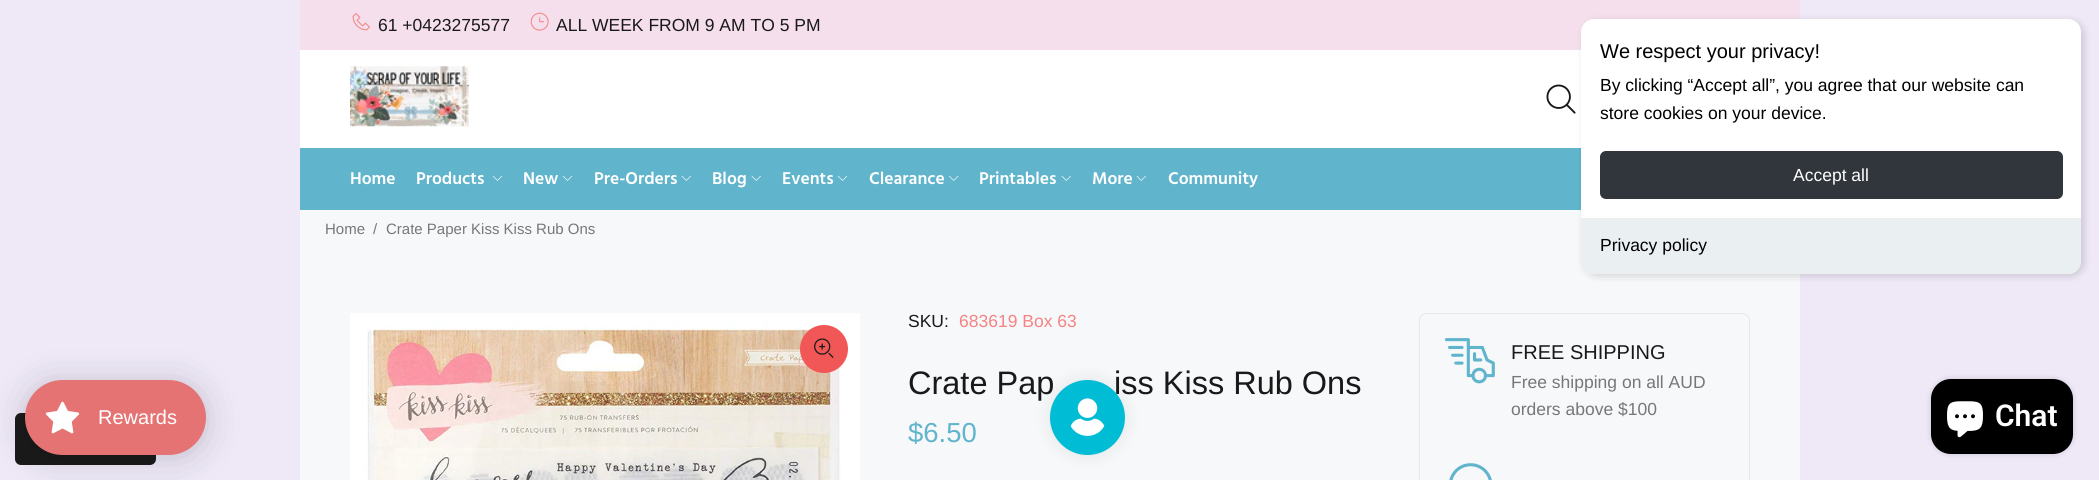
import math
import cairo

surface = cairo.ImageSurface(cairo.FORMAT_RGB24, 2099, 480)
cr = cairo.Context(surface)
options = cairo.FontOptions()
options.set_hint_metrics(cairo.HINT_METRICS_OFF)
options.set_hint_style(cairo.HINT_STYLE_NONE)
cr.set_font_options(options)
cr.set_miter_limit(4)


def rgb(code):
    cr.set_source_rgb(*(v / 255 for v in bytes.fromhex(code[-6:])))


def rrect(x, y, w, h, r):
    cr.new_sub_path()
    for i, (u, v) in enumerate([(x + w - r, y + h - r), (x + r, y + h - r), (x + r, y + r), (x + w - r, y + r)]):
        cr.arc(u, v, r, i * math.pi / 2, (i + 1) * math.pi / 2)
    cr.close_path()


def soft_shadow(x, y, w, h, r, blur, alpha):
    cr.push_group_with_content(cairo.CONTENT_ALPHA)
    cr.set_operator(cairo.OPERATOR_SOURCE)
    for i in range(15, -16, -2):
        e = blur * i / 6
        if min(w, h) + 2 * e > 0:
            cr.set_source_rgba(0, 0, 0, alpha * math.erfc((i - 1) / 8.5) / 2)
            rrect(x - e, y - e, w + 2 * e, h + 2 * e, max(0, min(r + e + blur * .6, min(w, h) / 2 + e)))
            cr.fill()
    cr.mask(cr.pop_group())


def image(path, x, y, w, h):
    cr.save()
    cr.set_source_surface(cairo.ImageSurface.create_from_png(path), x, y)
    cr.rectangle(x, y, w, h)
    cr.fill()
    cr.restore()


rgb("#eee8f7")
cr.paint()
for x, y, w, h, color in [
    (300, 210, 1500, 270, "#f7f8fa"),
    (300, 50, 1281, 98, "#ffffff"),
    (300, 0, 1500, 50, "#f5dfec"),
]:
    rgb(color)
    cr.rectangle(x, y, w, h)
    cr.fill()
image("img/1.png", 352, 13, 18, 18)
image("img/2.png", 530, 12, 19, 19)
image("img/3.png", 350, 66, 119, 61)
image("img/4.png", 1546, 84, 30, 30)
rgb("#60b4cc")
cr.rectangle(300, 148, 1281, 62)
cr.fill()
image("img/5.png", 492, 175, 11, 6)
image("img/5.png", 562, 175, 11, 6)
image("img/6.png", 681, 175, 10, 6)
image("img/6.png", 751, 175, 10, 6)
image("img/5.png", 837, 175, 11, 6)
image("img/7.png", 949, 175, 10, 6)
image("img/6.png", 1061, 175, 10, 6)
image("img/6.png", 1136, 175, 10, 6)
rgb("#000000")
soft_shadow(1584, 21, 500, 255, 13, 4, 0.15)
rgb("#ffffff")
rrect(1581, 19, 500, 255, 13)
cr.fill()
rgb("#30363c")
rrect(1600, 151, 463, 48, 6)
cr.fill()
rgb("#eaeff2")
cr.new_path()
cr.move_to(1581, 218)
cr.line_to(2081, 218)
cr.line_to(2081, 261)
cr.curve_to(2081, 268, 2075, 274, 2068, 274)
cr.line_to(1594, 274)
cr.curve_to(1587, 274, 1581, 268, 1581, 261)
cr.close_path()
cr.fill()
rgb("#eeeeee")
cr.rectangle(1581, 218, 500, 1)
cr.fill()
cr.save()
rrect(1581, 19, 500, 255, 13)
cr.clip()
cr.rectangle(1581, 273, 500, 1)
cr.fill()
cr.restore()
image("img/8.png", 350, 313, 510, 167)
rgb("#f15757")
cr.arc(824, 349, 24, 0, 2 * math.pi)
cr.fill()
image("img/9.png", 814, 338, 20, 20)
rrect(1419.5, 313.5, 330, 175, 7.5)
rgb("#e9e7e7")
cr.set_line_width(1)
cr.stroke()
image("img/10.png", 1444, 338, 51, 46)
image("img/11.png", 1449, 463, 43, 17)
rgb("#1a1a1a")
rrect(15, 413, 141, 52, 6)
cr.fill()
rgb("#000000")
soft_shadow(25, 383, 181, 75, 37.5, 19, 0.15)
soft_shadow(25, 381, 181, 75, 37.5, 4, 0.05)
rgb("#e57373")
rrect(25, 380, 181, 75, 37.5)
cr.fill()
image("img/12.png", 45, 401, 35, 33)
rgb("#000000")
soft_shadow(1050, 380, 75, 75, 37.5, 9.5, 0.08)
soft_shadow(1931, 379, 142, 75, 20, 3, 0.15)
rgb("#000000")
rrect(1931, 379, 142, 75, 20)
cr.fill()
image("img/14.png", 1947, 401, 36, 37)
cr.select_font_face("Liberation Sans")
cr.set_font_size(17.5)
rgb("#191919")
cr.move_to(378, 31)
cr.show_text("61 +0423275577")
cr.move_to(556, 31)
cr.show_text("ALL WEEK FROM 9 AM TO 5 PM")
cr.select_font_face("Hind SemiBold")
rgb("#ffffff")
for x, y, s in [
    (350, 184, "Home"),
    (416, 184, "Products"),
    (523, 184, "New"),
    (594, 184, "Pre-Orders"),
    (712, 184, "Blog"),
    (782, 184, "Events"),
    (869, 184, "Clearance"),
    (979, 184, "Printables"),
    (1092, 184, "More"),
    (1168, 184, "Community"),
]:
    cr.move_to(x, y)
    cr.show_text(s)
cr.select_font_face("Liberation Sans")
cr.set_font_size(20)
rgb("#000000")
cr.move_to(1600, 58)
cr.show_text("We respect your privacy!")
cr.set_font_size(17.5)
cr.move_to(1600, 91)
cr.show_text("By clicking “Accept all”, you agree that our website can")
cr.move_to(1600, 119)
cr.show_text("store cookies on your device.")
rgb("#ffffff")
cr.move_to(1793, 181)
cr.show_text("Accept all")
rgb("#000000")
cr.move_to(1600, 251)
cr.show_text("Privacy policy")
cr.set_font_size(15)
rgb("#777777")
for x, y, s in [
    (325, 234, "Home"),
    (373, 234, "/"),
    (386, 234, "Crate Paper Kiss Kiss Rub Ons"),
]:
    cr.move_to(x, y)
    cr.show_text(s)
cr.set_font_size(17.5)
rgb("#191919")
cr.move_to(908, 327)
cr.show_text("SKU:")
rgb("#f48383")
cr.move_to(959, 327)
cr.show_text("683619 Box 63")
cr.set_font_size(32.5)
rgb("#191919")
cr.move_to(908, 394)
cr.show_text("Crate Pap")
cr.move_to(1114, 394)
cr.show_text("iss Kiss Rub Ons")
cr.set_font_size(27.5)
rgb("#60b4cc")
cr.move_to(908, 442)
cr.show_text("$6.50")
cr.set_font_size(20)
rgb("#191919")
cr.move_to(1511, 359)
cr.show_text("FREE SHIPPING")
cr.set_font_size(17.5)
rgb("#777777")
cr.move_to(1511, 388)
cr.show_text("Free shipping on all AUD")
cr.move_to(1511, 415)
cr.show_text("orders above $100")
cr.set_font_size(20)
rgb("#ffffff")
cr.move_to(98, 424)
cr.show_text("Rewards")
rgb("#00bcd4")
cr.new_path()
cr.arc(1087.5, 417.5, 37.5, 0, 2 * math.pi)
cr.fill()
image("img/13.png", 1070, 398, 35, 38)
cr.select_font_face("Roboto SemiBold")
cr.set_font_size(30)
rgb("#ffffff")
cr.move_to(1995, 426)
cr.show_text("Chat")
surface.write_to_png("page.png")
